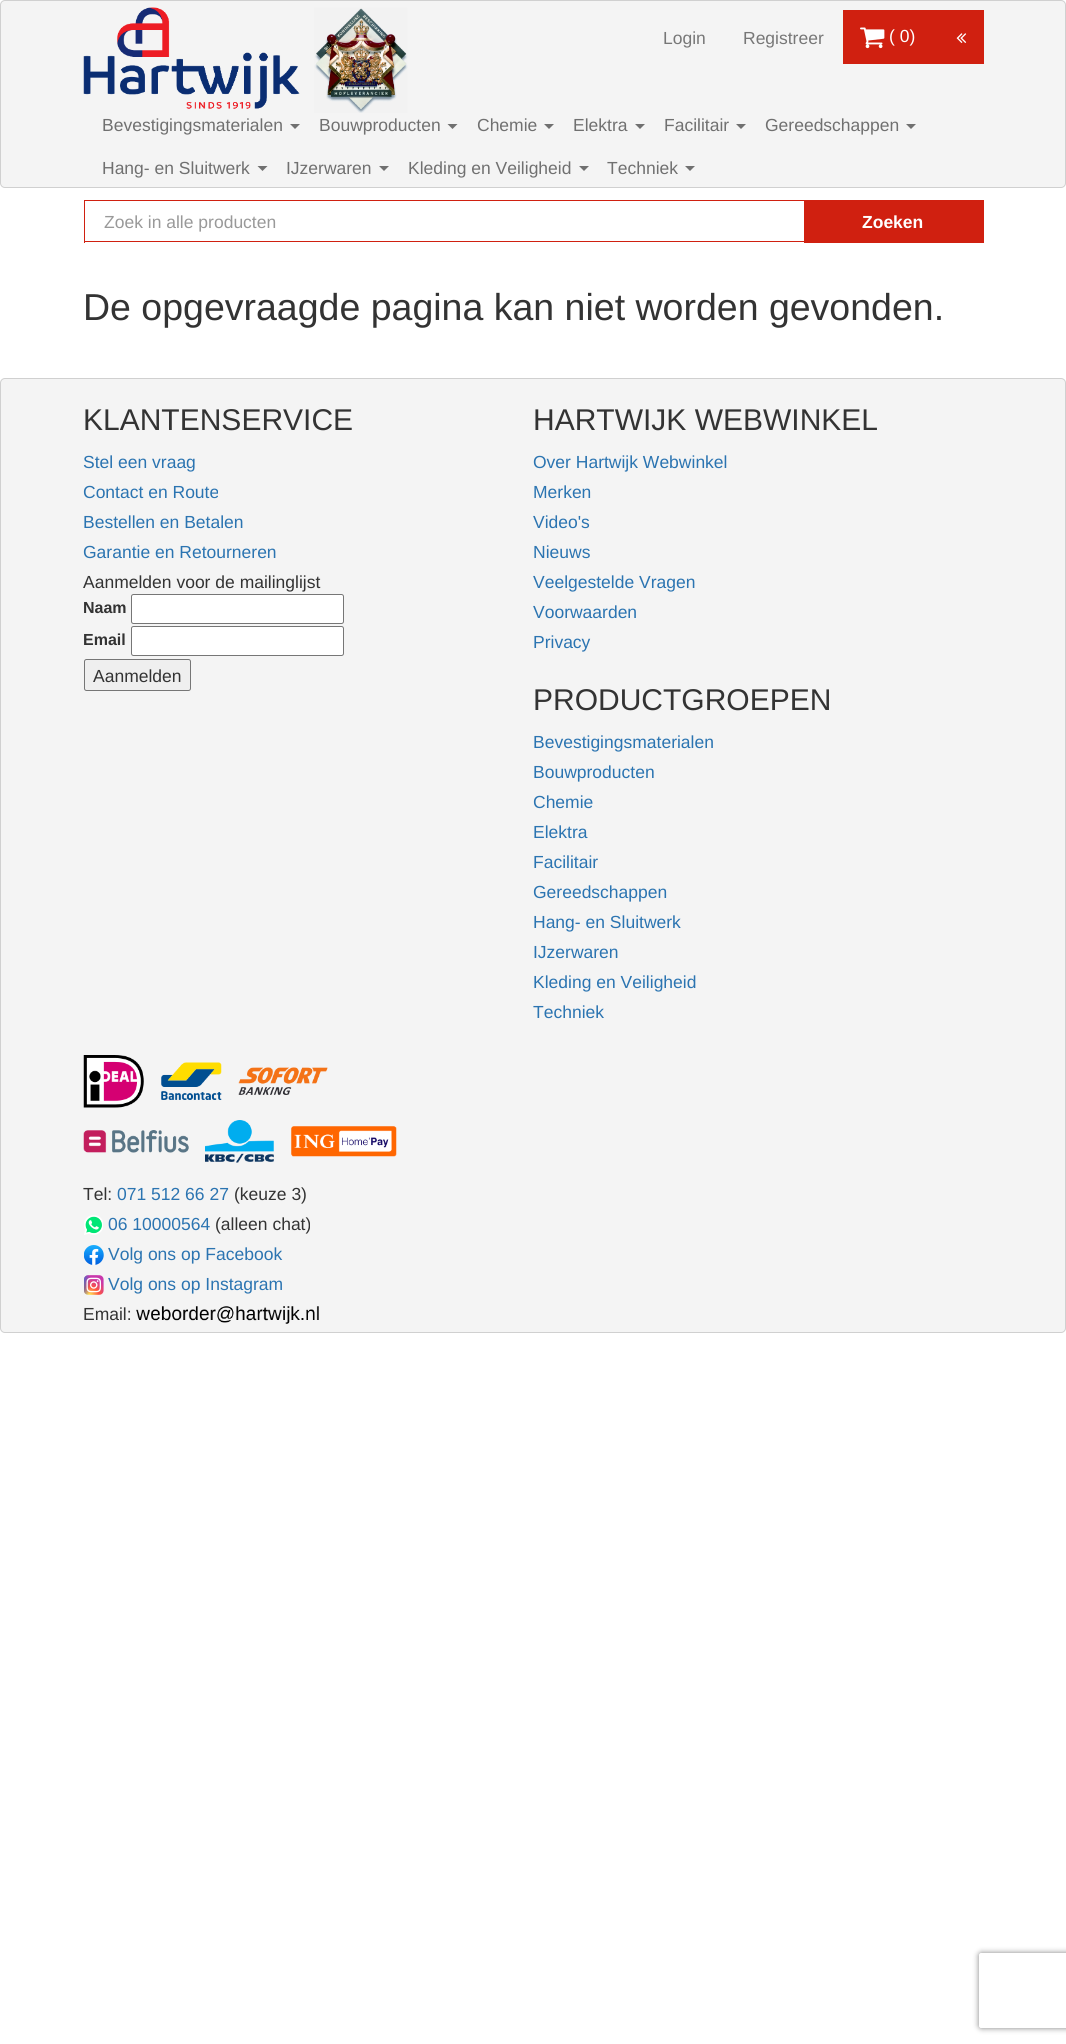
import math
import cairo

surface = cairo.ImageSurface(cairo.FORMAT_RGB24, 1066, 2044)
cr = cairo.Context(surface)
options = cairo.FontOptions()
options.set_hint_metrics(cairo.HINT_METRICS_OFF)
options.set_hint_style(cairo.HINT_STYLE_NONE)
cr.set_font_options(options)
cr.set_miter_limit(4)


def rgb(code):
    cr.set_source_rgb(*(v / 255 for v in bytes.fromhex(code[-6:])))


def rrect(x, y, w, h, r):
    cr.new_sub_path()
    for i, (u, v) in enumerate([(x + w - r, y + h - r), (x + r, y + h - r), (x + r, y + r), (x + w - r, y + r)]):
        cr.arc(u, v, r, i * math.pi / 2, (i + 1) * math.pi / 2)
    cr.close_path()


def soft_shadow(x, y, w, h, r, blur, alpha):
    cr.push_group_with_content(cairo.CONTENT_ALPHA)
    cr.set_operator(cairo.OPERATOR_SOURCE)
    for i in range(15, -16, -2):
        e = blur * i / 6
        if min(w, h) + 2 * e > 0:
            cr.set_source_rgba(0, 0, 0, alpha * math.erfc((i - 1) / 8.5) / 2)
            rrect(x - e, y - e, w + 2 * e, h + 2 * e, max(0, min(r + e + blur * .6, min(w, h) / 2 + e)))
            cr.fill()
    cr.mask(cr.pop_group())


def image(path, x, y, w, h):
    cr.save()
    cr.set_source_surface(cairo.ImageSurface.create_from_png(path), x, y)
    cr.rectangle(x, y, w, h)
    cr.fill()
    cr.restore()


rgb("#ffffff")
cr.paint()
rgb("#f4f4f4")
rrect(0.5, 0.5, 1065, 187, 4.5)
cr.fill_preserve()
rgb("#d0d0d0")
cr.set_line_width(1)
cr.stroke()
image("img/1.png", 83, 7, 325, 106)
rgb("#d02010")
cr.rectangle(843, 10, 141, 54)
cr.fill()
image("img/2.png", 860, 27, 25, 22)
image("img/3.png", 956, 33, 11, 10)
rgb("#707070")
cr.new_path()
cr.move_to(290, 124)
cr.line_to(300, 124)
cr.line_to(295, 129)
cr.close_path()
cr.fill()
cr.new_path()
cr.move_to(447.5, 124)
cr.line_to(457.5, 124)
cr.line_to(452.5, 129)
cr.close_path()
cr.fill()
cr.new_path()
cr.move_to(544, 124)
cr.line_to(554, 124)
cr.line_to(549, 129)
cr.close_path()
cr.fill()
cr.new_path()
cr.move_to(635, 124)
cr.line_to(645, 124)
cr.line_to(640, 129)
cr.close_path()
cr.fill()
cr.new_path()
cr.move_to(736, 124)
cr.line_to(746, 124)
cr.line_to(741, 129)
cr.close_path()
cr.fill()
cr.new_path()
cr.move_to(906, 124)
cr.line_to(916, 124)
cr.line_to(911, 129)
cr.close_path()
cr.fill()
cr.new_path()
cr.move_to(257.5, 166)
cr.line_to(267.5, 166)
cr.line_to(262.5, 171)
cr.close_path()
cr.fill()
cr.new_path()
cr.move_to(379, 166)
cr.line_to(389, 166)
cr.line_to(384, 171)
cr.close_path()
cr.fill()
cr.new_path()
cr.move_to(579, 166)
cr.line_to(589, 166)
cr.line_to(584, 171)
cr.close_path()
cr.fill()
cr.new_path()
cr.move_to(685, 166)
cr.line_to(695, 166)
cr.line_to(690, 171)
cr.close_path()
cr.fill()
for x, y, w, h, color in [
    (84, 200, 720, 1, "#d02010"),
    (84, 241, 720, 1, "#d02010"),
    (84, 200, 1, 43, "#d02010"),
    (804, 200, 180, 43, "#d02010"),
]:
    rgb(color)
    cr.rectangle(x, y, w, h)
    cr.fill()
rgb("#f4f4f4")
rrect(0.5, 378.5, 1065, 954, 4.5)
cr.fill_preserve()
rgb("#d0d0d0")
cr.stroke()
rgb("#ffffff")
rrect(131.5, 594.5, 212, 29, 2)
cr.fill_preserve()
rgb("#767676")
cr.stroke()
rgb("#ffffff")
rrect(131.5, 626.5, 212, 29, 2)
cr.fill_preserve()
rgb("#767676")
cr.stroke()
rgb("#efefef")
rrect(84.5, 659.5, 106, 31, 2)
cr.fill_preserve()
rgb("#767676")
cr.stroke()
image("img/4.png", 83, 1055, 61, 53)
image("img/5.png", 161, 1062, 61, 38)
image("img/6.png", 238, 1067, 90, 28)
image("img/7.png", 83, 1130, 106, 23)
image("img/8.png", 205, 1120, 69, 43)
image("img/9.png", 291, 1126, 106, 31)
image("img/10.png", 84, 1215, 19, 20)
image("img/11.png", 84, 1245, 20, 20)
image("img/12.png", 84, 1275, 20, 20)
image("img/13.png", 136, 1306, 183, 18)
cr.save()
cr.set_fill_rule(cairo.FILL_RULE_EVEN_ODD)
cr.new_path()
cr.move_to(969, 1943)
cr.line_to(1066, 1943)
cr.line_to(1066, 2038)
cr.line_to(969, 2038)
cr.close_path()
cr.move_to(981.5, 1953)
cr.line_to(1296.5, 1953)
cr.curve_to(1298, 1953, 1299, 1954, 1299, 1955.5)
cr.line_to(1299, 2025.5)
cr.curve_to(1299, 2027, 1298, 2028, 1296.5, 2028)
cr.line_to(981.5, 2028)
cr.curve_to(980, 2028, 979, 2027, 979, 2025.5)
cr.line_to(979, 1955.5)
cr.curve_to(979, 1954, 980, 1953, 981.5, 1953)
cr.close_path()
cr.clip()
rgb("#808080")
soft_shadow(979, 1953, 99, 75, 2.5, 3, 1)
cr.restore()
cr.select_font_face("Liberation Sans")
cr.set_font_size(17.5)
rgb("#777777")
cr.move_to(663, 44)
cr.show_text("Login")
cr.move_to(743, 44)
cr.show_text("Registreer")
rgb("#ffffff")
cr.move_to(889, 42)
cr.show_text("( 0)")
rgb("#707070")
for x, y, s in [
    (102, 131, "Bevestigingsmaterialen"),
    (319, 131, "Bouwproducten"),
    (477, 131, "Chemie"),
    (573, 131, "Elektra"),
    (664, 131, "Facilitair"),
    (765, 131, "Gereedschappen"),
    (102, 174, "Hang- en Sluitwerk"),
    (286, 174, "IJzerwaren"),
    (408, 174, "Kleding en Veiligheid"),
    (607, 174, "Techniek"),
]:
    cr.move_to(x, y)
    cr.show_text(s)
rgb("#999999")
cr.move_to(104, 228)
cr.show_text("Zoek in alle producten")
cr.select_font_face("Liberation Sans", cairo.FONT_SLANT_NORMAL, cairo.FONT_WEIGHT_BOLD)
rgb("#ffffff")
cr.move_to(862, 228)
cr.show_text("Zoeken")
cr.select_font_face("Liberation Sans")
cr.set_font_size(37.5)
rgb("#333333")
cr.move_to(83, 320)
cr.show_text("De opgevraagde pagina kan niet worden gevonden.")
cr.set_font_size(30)
cr.move_to(83, 430)
cr.show_text("KLANTENSERVICE")
cr.set_font_size(17.5)
rgb("#2b74b1")
for x, y, s in [
    (83, 468, "Stel een vraag"),
    (83, 498, "Contact en Route"),
    (83, 528, "Bestellen en Betalen"),
    (83, 558, "Garantie en Retourneren"),
]:
    cr.move_to(x, y)
    cr.show_text(s)
rgb("#333333")
cr.move_to(83, 588)
cr.show_text("Aanmelden voor de mailinglijst")
cr.select_font_face("Liberation Sans", cairo.FONT_SLANT_NORMAL, cairo.FONT_WEIGHT_BOLD)
cr.set_font_size(16)
cr.move_to(83, 613)
cr.show_text("Naam")
cr.move_to(83, 645)
cr.show_text("Email")
cr.select_font_face("Liberation Sans")
cr.set_font_size(17.5)
cr.move_to(93, 682)
cr.show_text("Aanmelden")
cr.set_font_size(30)
cr.move_to(533, 430)
cr.show_text("HARTWIJK WEBWINKEL")
cr.set_font_size(17.5)
rgb("#2b74b1")
for x, y, s in [
    (533, 468, "Over Hartwijk Webwinkel"),
    (533, 498, "Merken"),
    (533, 528, "Video's"),
    (533, 558, "Nieuws"),
    (533, 588, "Veelgestelde Vragen"),
    (533, 618, "Voorwaarden"),
    (533, 648, "Privacy"),
]:
    cr.move_to(x, y)
    cr.show_text(s)
cr.set_font_size(30)
rgb("#333333")
cr.move_to(533, 710)
cr.show_text("PRODUCTGROEPEN")
cr.set_font_size(17.5)
rgb("#2b74b1")
for x, y, s in [
    (533, 748, "Bevestigingsmaterialen"),
    (533, 778, "Bouwproducten"),
    (533, 808, "Chemie"),
    (533, 838, "Elektra"),
    (533, 868, "Facilitair"),
    (533, 898, "Gereedschappen"),
    (533, 928, "Hang- en Sluitwerk"),
    (533, 958, "IJzerwaren"),
    (533, 988, "Kleding en Veiligheid"),
    (533, 1018, "Techniek"),
]:
    cr.move_to(x, y)
    cr.show_text(s)
rgb("#333333")
cr.move_to(83, 1200)
cr.show_text("Tel:")
rgb("#2b74b1")
cr.move_to(117, 1200)
cr.show_text("071 512 66 27")
rgb("#333333")
cr.move_to(234, 1200)
cr.show_text("(keuze 3)")
rgb("#2b74b1")
cr.move_to(108, 1230)
cr.show_text("06 10000564")
rgb("#333333")
cr.move_to(215, 1230)
cr.show_text("(alleen chat)")
rgb("#2b74b1")
cr.move_to(108, 1260)
cr.show_text("Volg ons op Facebook")
cr.move_to(108, 1290)
cr.show_text("Volg ons op Instagram")
rgb("#333333")
cr.move_to(83, 1320)
cr.show_text("Email:")
surface.write_to_png("page.png")
